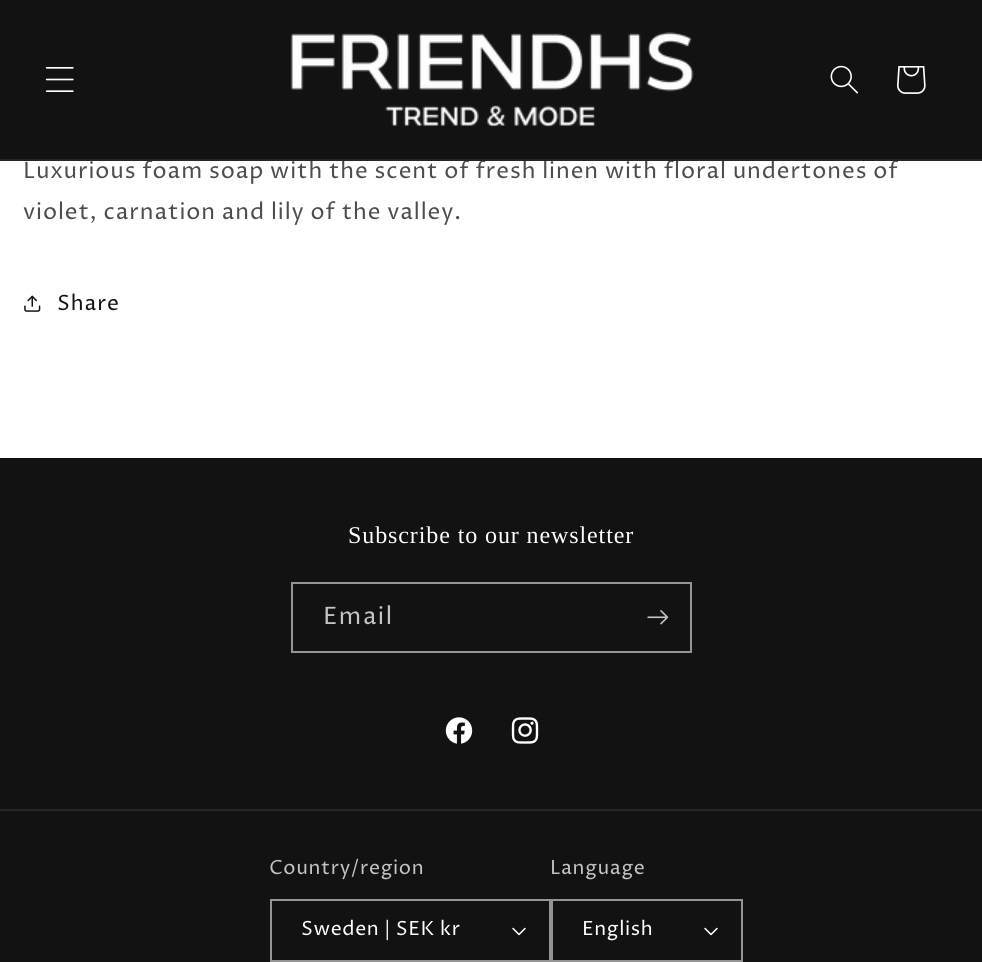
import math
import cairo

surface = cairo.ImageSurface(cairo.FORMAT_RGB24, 982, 962)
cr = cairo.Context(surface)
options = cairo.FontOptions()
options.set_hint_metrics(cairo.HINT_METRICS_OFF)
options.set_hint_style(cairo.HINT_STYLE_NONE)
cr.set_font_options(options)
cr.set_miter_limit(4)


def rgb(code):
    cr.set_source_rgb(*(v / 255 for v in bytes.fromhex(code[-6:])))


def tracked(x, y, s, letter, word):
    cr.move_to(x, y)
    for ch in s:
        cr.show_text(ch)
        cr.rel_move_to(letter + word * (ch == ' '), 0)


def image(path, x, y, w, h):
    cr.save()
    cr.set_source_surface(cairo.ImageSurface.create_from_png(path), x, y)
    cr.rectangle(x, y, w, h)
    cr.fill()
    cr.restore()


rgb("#121212")
cr.paint()
image("img/1.png", 45, 67, 29, 25)
image("img/2.png", 290, 32, 404, 95)
image("img/3.png", 830, 65, 28, 29)
image("img/4.png", 897, 66, 29, 28)
rgb("#ffffff")
cr.rectangle(0, 161, 982, 297)
cr.fill()
image("img/5.png", 24, 295, 17, 17)
cr.rectangle(292, 583, 399, 69)
rgb("#949494")
cr.stroke()
image("img/6.png", 647, 610, 22, 15)
image("img/7.png", 445, 717, 28, 27)
image("img/8.png", 511, 717, 28, 27)
rgb("#252525")
cr.rectangle(0, 809, 982, 2)
cr.fill()
image("img/9.png", 512, 927, 14, 9)
cr.rectangle(271, 900, 279, 61)
rgb("#949494")
cr.stroke()
image("img/9.png", 704, 927, 14, 9)
cr.rectangle(552, 900, 190, 61)
cr.stroke()
cr.select_font_face("Proza Libre")
cr.set_font_size(22.5)
rgb("#4d4d4d")
tracked(23, 178, "Luxurious foam soap with the scent of fresh linen with floral undertones of", 0.9, 0)
rgb("#252525")
cr.rectangle(0, 159, 982, 2)
cr.fill()
rgb("#4d4d4d")
tracked(23, 219, "violet, carnation and lily of the valley.", 0.9, 0)
cr.set_font_size(21)
rgb("#121212")
tracked(57, 310, "Share", 0.9, 0)
cr.select_font_face("Liberation Serif")
cr.set_font_size(24)
rgb("#ffffff")
tracked(348, 543, "Subscribe to our newsletter", 0.9, 0)
cr.select_font_face("Proza Libre")
rgb("#c4c4c4")
tracked(323, 624, "Email", 1.5, 0)
cr.set_font_size(19.5)
tracked(269, 874, "Country/region", 0.6, 0)
rgb("#ffffff")
tracked(301, 935, "Sweden | SEK kr", 0.6, 0)
rgb("#c4c4c4")
tracked(550, 874, "Language", 0.6, 0)
rgb("#ffffff")
tracked(582, 935, "English", 0.6, 0)
surface.write_to_png("page.png")
